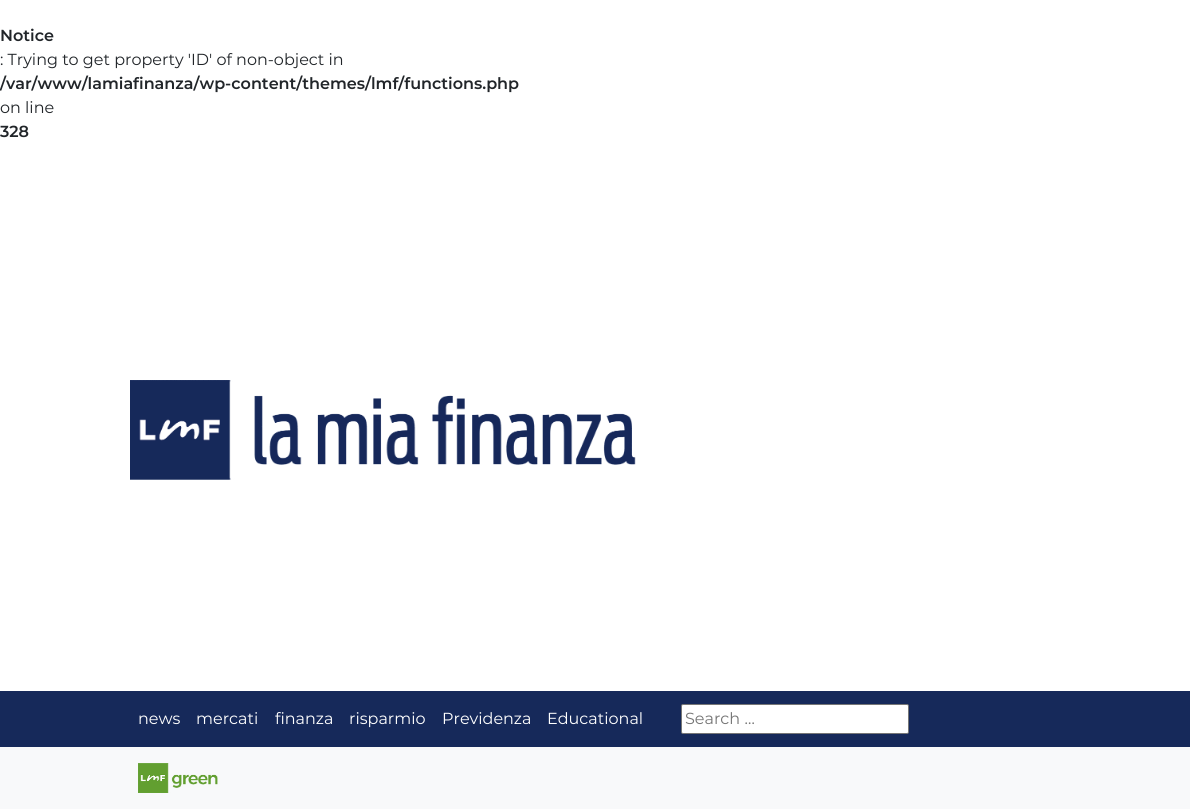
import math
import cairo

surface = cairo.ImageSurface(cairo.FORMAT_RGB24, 1190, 809)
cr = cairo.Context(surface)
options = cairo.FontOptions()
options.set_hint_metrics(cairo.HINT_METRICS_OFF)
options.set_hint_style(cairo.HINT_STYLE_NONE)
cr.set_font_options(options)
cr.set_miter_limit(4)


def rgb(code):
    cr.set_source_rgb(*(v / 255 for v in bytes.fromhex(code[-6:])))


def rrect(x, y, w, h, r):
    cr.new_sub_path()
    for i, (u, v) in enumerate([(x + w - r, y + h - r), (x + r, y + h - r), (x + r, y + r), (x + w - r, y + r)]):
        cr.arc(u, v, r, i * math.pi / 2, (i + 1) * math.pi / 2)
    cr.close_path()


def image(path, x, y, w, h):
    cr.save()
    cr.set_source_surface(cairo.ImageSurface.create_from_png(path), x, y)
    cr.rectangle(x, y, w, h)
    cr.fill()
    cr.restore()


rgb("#ffffff")
cr.paint()
image("img/1.png", 130, 380, 506, 100)
rgb("#16295a")
cr.rectangle(0, 691, 1190, 56)
cr.fill()
rgb("#ffffff")
rrect(681.5, 704.5, 227, 29, 1.5)
cr.fill_preserve()
rgb("#767676")
cr.set_line_width(1)
cr.stroke()
rgb("#f8f9fa")
cr.rectangle(0, 747, 1190, 62)
cr.fill()
image("img/2.png", 138, 763, 80, 30)
cr.select_font_face("Montserrat SemiBold")
cr.set_font_size(16)
rgb("#212529")
cr.move_to(0, 41)
cr.show_text("Notice")
cr.select_font_face("Montserrat")
cr.move_to(0, 65)
cr.show_text(": Trying to get property 'ID' of non-object in")
cr.select_font_face("Montserrat SemiBold")
cr.move_to(0, 89)
cr.show_text("/var/www/lamiafinanza/wp-content/themes/lmf/functions.php")
cr.select_font_face("Montserrat")
cr.move_to(0, 113)
cr.show_text("on line")
cr.select_font_face("Montserrat SemiBold")
cr.move_to(0, 137)
cr.show_text("328")
cr.select_font_face("Montserrat")
rgb("#ffffff")
for x, y, s in [
    (138, 724, "news"),
    (196, 724, "mercati"),
    (275, 724, "finanza"),
    (349, 724, "risparmio"),
    (442, 724, "Previdenza"),
    (547, 724, "Educational"),
]:
    cr.move_to(x, y)
    cr.show_text(s)
rgb("#757575")
cr.move_to(685, 724)
cr.show_text("Search …")
surface.write_to_png("page.png")
